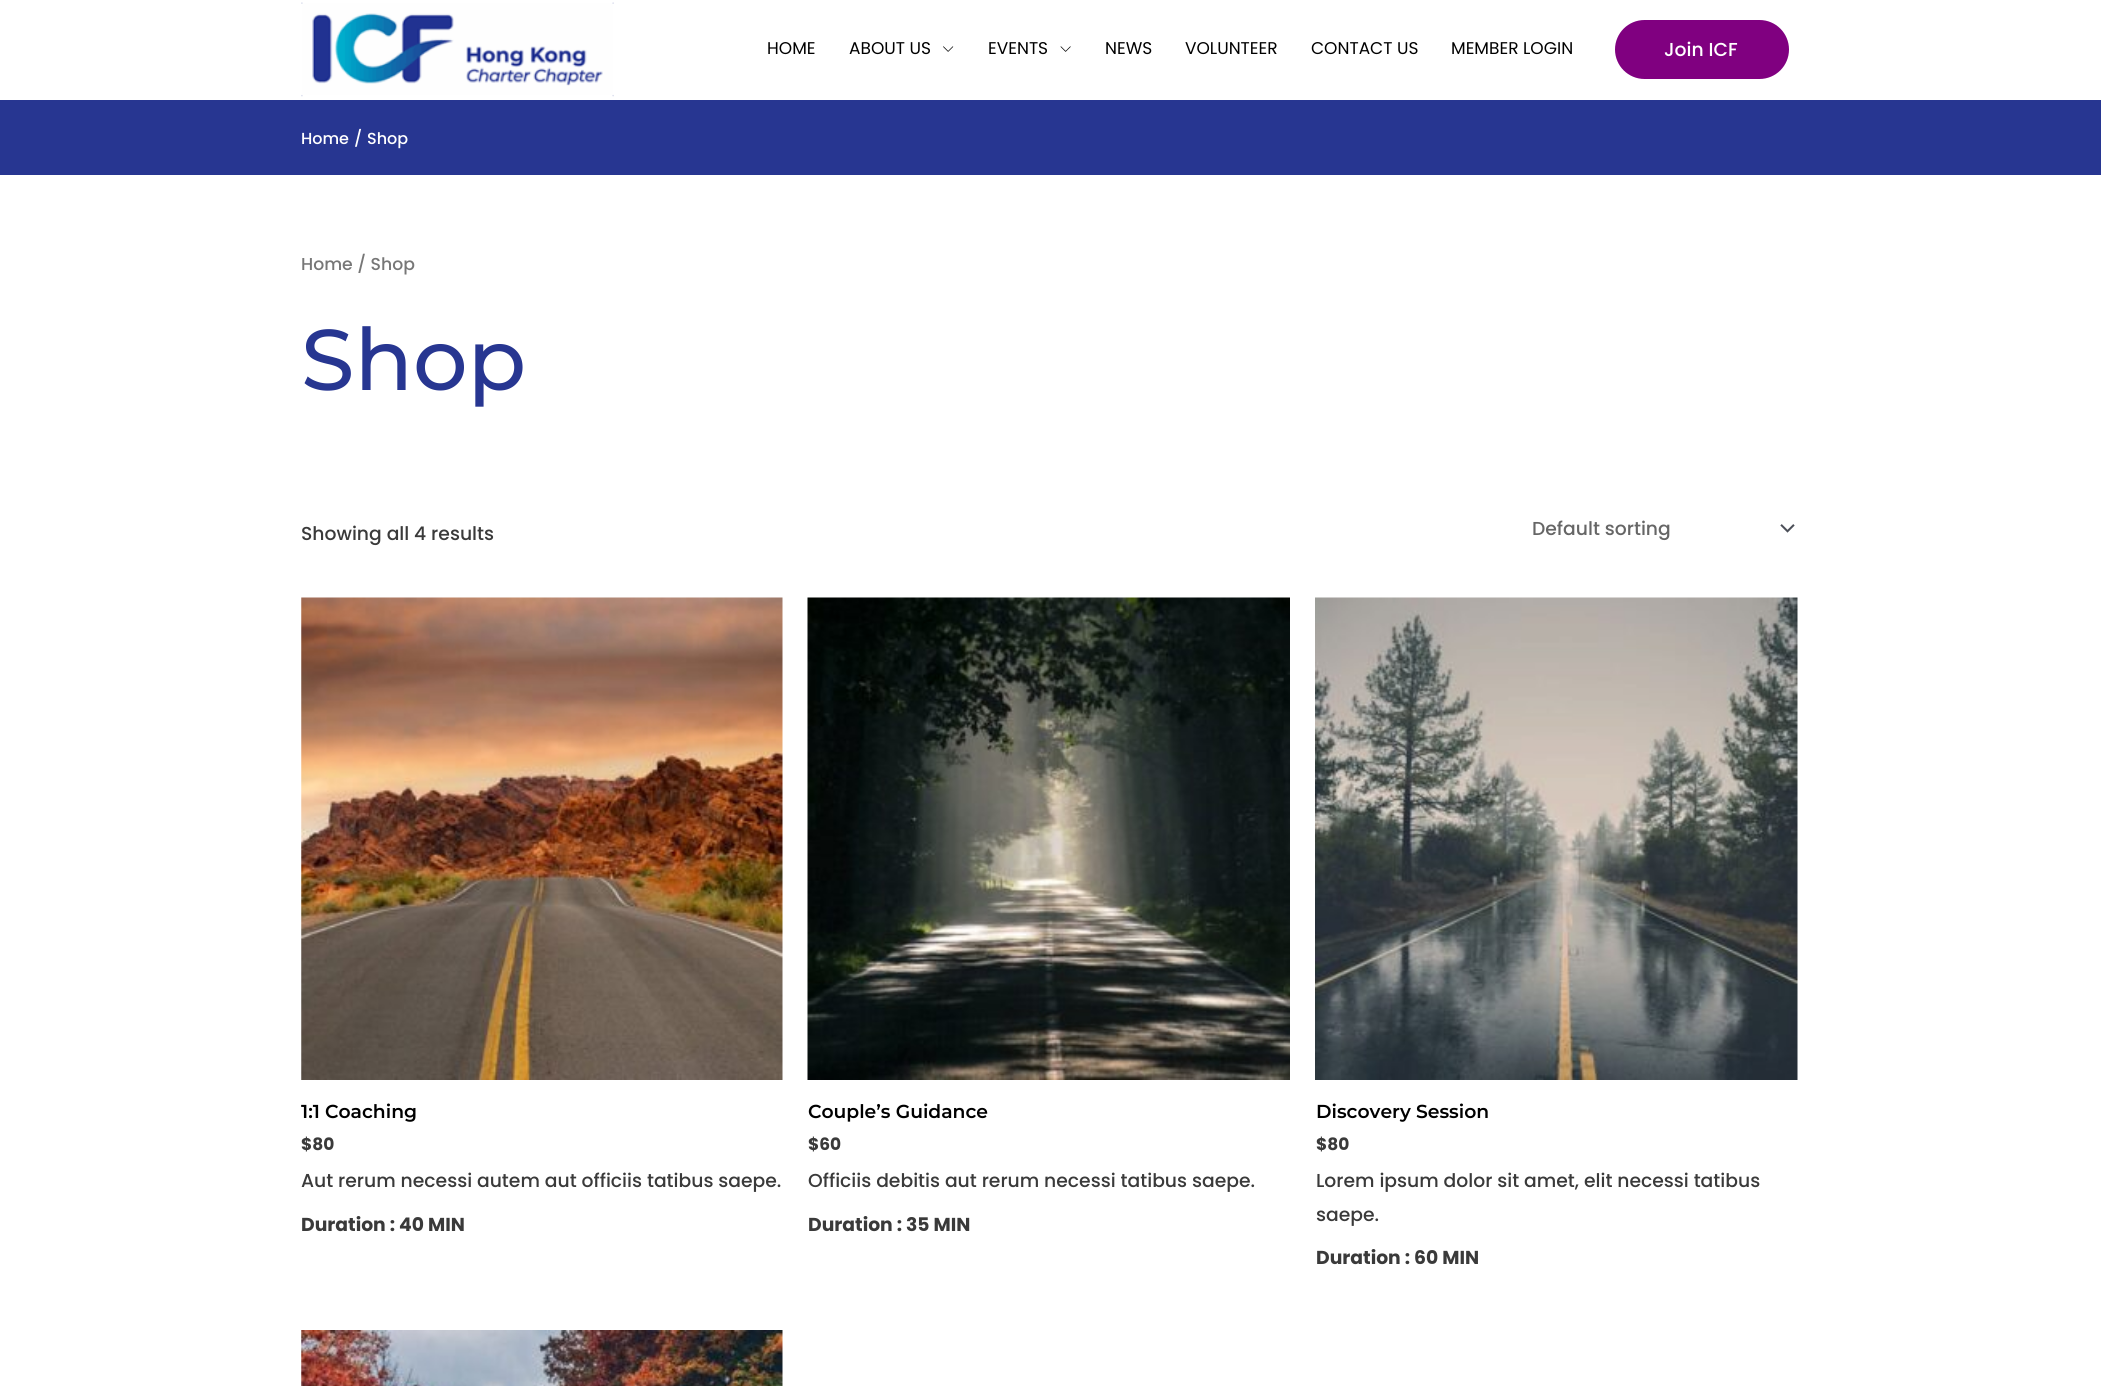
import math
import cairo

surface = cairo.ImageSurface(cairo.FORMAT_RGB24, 2101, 1386)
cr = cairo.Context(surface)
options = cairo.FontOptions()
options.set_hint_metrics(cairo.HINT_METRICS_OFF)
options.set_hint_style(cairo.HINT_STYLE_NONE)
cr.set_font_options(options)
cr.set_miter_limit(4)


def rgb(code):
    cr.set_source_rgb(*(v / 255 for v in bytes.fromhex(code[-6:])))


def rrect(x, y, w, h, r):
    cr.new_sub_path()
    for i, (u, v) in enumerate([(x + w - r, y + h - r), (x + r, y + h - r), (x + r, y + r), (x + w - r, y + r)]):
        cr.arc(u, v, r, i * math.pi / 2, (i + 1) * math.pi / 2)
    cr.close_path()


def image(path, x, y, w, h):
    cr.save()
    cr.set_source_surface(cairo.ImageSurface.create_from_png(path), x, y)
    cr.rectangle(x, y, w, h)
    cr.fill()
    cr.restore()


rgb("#ffffff")
cr.paint()
image("img/1.png", 301, 2, 313, 95)
image("img/2.png", 943, 46, 11, 6)
image("img/3.png", 1060, 46, 11, 6)
rgb("#800080")
rrect(1615, 20, 174, 59, 29.5)
cr.fill()
rgb("#273691")
cr.rectangle(0, 100, 2101, 75)
cr.fill()
image("img/4.png", 1780, 524, 15, 9)
image("img/5.png", 301, 597, 482, 483)
image("img/6.png", 807, 597, 483, 483)
image("img/7.png", 1315, 597, 483, 483)
image("img/8.png", 301, 1330, 482, 56)
cr.select_font_face("Poppins")
cr.set_font_size(17)
rgb("#000000")
for x, y, s in [
    (767, 54, "HOME"),
    (849, 54, "ABOUT US"),
    (988, 54, "EVENTS"),
    (1105, 54, "NEWS"),
    (1185, 54, "VOLUNTEER"),
    (1311, 54, "CONTACT US"),
    (1451, 54, "MEMBER LOGIN"),
]:
    cr.move_to(x, y)
    cr.show_text(s)
cr.select_font_face("Poppins Medium")
cr.set_font_size(18.75)
rgb("#ffffff")
cr.move_to(1664, 56)
cr.show_text("Join ICF")
cr.set_font_size(16)
for x, y, s in [
    (301, 144, "Home"),
    (354, 144, "/"),
    (367, 144, "Shop"),
]:
    cr.move_to(x, y)
    cr.show_text(s)
cr.set_font_size(17.25)
rgb("#777777")
cr.move_to(301, 270)
cr.show_text("Home / Shop")
cr.select_font_face("Montserrat Medium")
cr.set_font_size(86)
rgb("#273691")
cr.move_to(301, 390)
cr.show_text("Shop")
cr.select_font_face("Poppins Medium")
cr.set_font_size(18.75)
rgb("#3a3a3a")
cr.move_to(301, 540)
cr.show_text("Showing all 4 results")
rgb("#666666")
cr.move_to(1532, 535)
cr.show_text("Default sorting")
cr.select_font_face("Montserrat SemiBold")
rgb("#000000")
cr.move_to(301, 1118)
cr.show_text("1:1 Coaching")
cr.select_font_face("Poppins", cairo.FONT_SLANT_NORMAL, cairo.FONT_WEIGHT_BOLD)
cr.set_font_size(17)
rgb("#3a3a3a")
cr.move_to(301, 1150)
cr.show_text("$80")
cr.select_font_face("Poppins Medium")
cr.set_font_size(18.75)
cr.move_to(301, 1187)
cr.show_text("Aut rerum necessi autem aut officiis tatibus saepe.")
cr.select_font_face("Poppins", cairo.FONT_SLANT_NORMAL, cairo.FONT_WEIGHT_BOLD)
cr.move_to(301, 1231)
cr.show_text("Duration : 40 MIN")
cr.select_font_face("Montserrat SemiBold")
rgb("#000000")
cr.move_to(808, 1118)
cr.show_text("Couple’s Guidance")
cr.select_font_face("Poppins", cairo.FONT_SLANT_NORMAL, cairo.FONT_WEIGHT_BOLD)
cr.set_font_size(17)
rgb("#3a3a3a")
cr.move_to(808, 1150)
cr.show_text("$60")
cr.select_font_face("Poppins Medium")
cr.set_font_size(18.75)
cr.move_to(808, 1187)
cr.show_text("Officiis debitis aut rerum necessi tatibus saepe.")
cr.select_font_face("Poppins", cairo.FONT_SLANT_NORMAL, cairo.FONT_WEIGHT_BOLD)
cr.move_to(808, 1231)
cr.show_text("Duration : 35 MIN")
cr.select_font_face("Montserrat SemiBold")
rgb("#000000")
cr.move_to(1316, 1118)
cr.show_text("Discovery Session")
cr.select_font_face("Poppins", cairo.FONT_SLANT_NORMAL, cairo.FONT_WEIGHT_BOLD)
cr.set_font_size(17)
rgb("#3a3a3a")
cr.move_to(1316, 1150)
cr.show_text("$80")
cr.select_font_face("Poppins Medium")
cr.set_font_size(18.75)
cr.move_to(1316, 1187)
cr.show_text("Lorem ipsum dolor sit amet, elit necessi tatibus")
cr.move_to(1316, 1221)
cr.show_text("saepe.")
cr.select_font_face("Poppins", cairo.FONT_SLANT_NORMAL, cairo.FONT_WEIGHT_BOLD)
cr.move_to(1316, 1264)
cr.show_text("Duration : 60 MIN")
surface.write_to_png("page.png")
